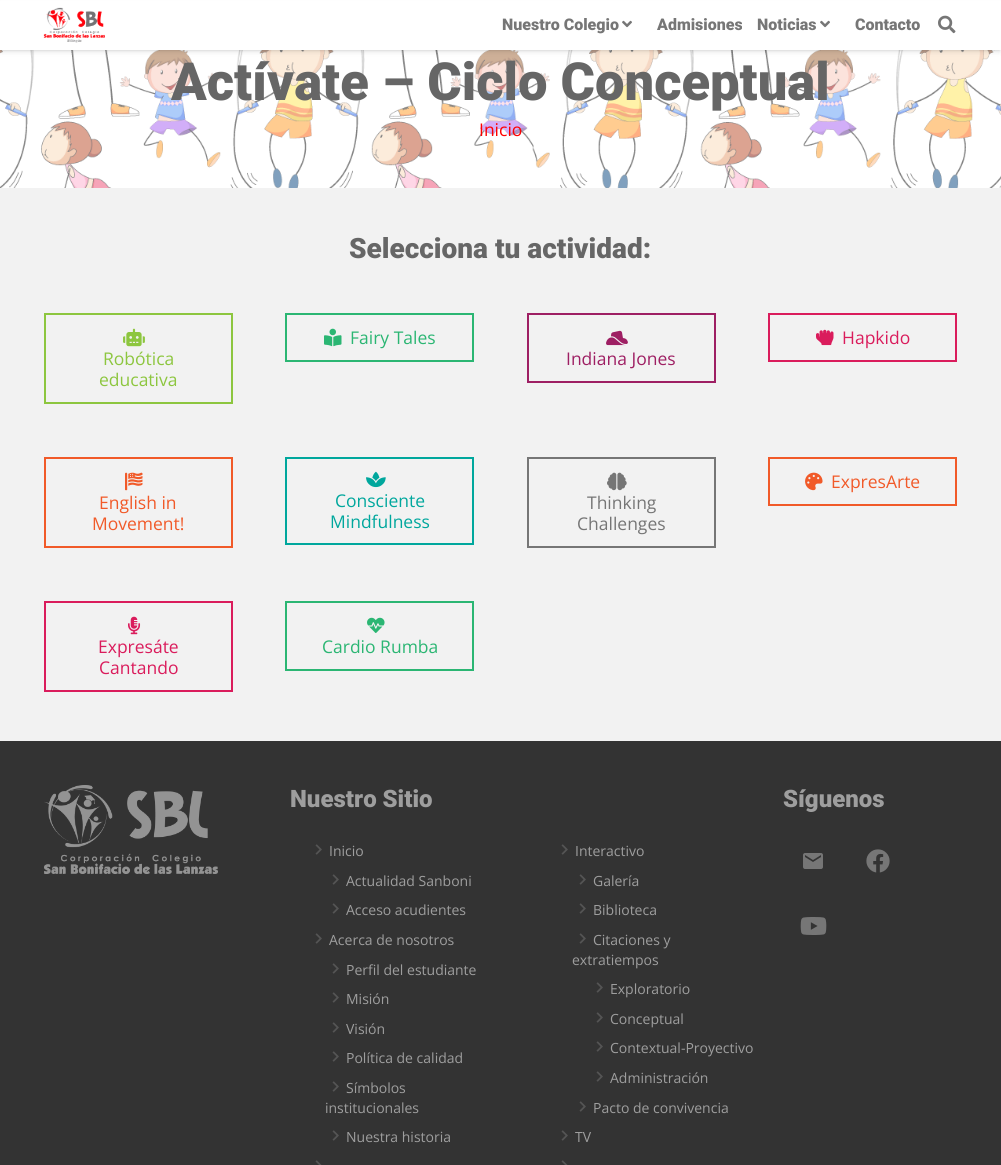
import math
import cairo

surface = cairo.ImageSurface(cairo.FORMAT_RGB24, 1001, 1165)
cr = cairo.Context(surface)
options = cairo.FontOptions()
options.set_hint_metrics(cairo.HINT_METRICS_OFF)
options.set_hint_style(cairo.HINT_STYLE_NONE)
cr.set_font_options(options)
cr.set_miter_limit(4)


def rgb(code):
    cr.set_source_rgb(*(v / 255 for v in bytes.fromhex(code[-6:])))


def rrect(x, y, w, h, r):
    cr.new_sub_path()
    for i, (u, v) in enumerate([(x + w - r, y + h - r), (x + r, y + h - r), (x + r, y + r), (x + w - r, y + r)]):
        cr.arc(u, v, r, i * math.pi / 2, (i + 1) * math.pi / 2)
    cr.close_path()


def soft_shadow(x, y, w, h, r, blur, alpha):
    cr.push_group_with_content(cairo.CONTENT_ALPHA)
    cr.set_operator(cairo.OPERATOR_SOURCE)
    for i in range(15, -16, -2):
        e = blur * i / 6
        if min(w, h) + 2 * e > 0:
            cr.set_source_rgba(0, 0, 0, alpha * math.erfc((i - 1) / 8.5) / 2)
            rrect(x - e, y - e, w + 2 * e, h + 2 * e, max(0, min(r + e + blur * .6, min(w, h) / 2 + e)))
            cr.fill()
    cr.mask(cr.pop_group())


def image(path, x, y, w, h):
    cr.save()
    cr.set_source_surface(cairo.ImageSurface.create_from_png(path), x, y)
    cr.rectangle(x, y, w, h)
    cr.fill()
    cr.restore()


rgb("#ffffff")
cr.paint()
image("img/4.png", 0, 50, 1001, 138)
rgb("#000000")
soft_shadow(1, 3, 999, 48, 0, 0.5, 0.05)
soft_shadow(1, 4, 999, 48, 0, 2.5, 0.1)
rgb("#ffffff")
cr.rectangle(0, 1, 1001, 49)
cr.fill()
image("img/1.png", 43, 7, 62, 36)
image("img/2.png", 622, 20, 10, 8)
image("img/2.png", 820, 20, 10, 8)
image("img/3.png", 938, 15, 18, 19)
rgb("#f2f2f2")
cr.rectangle(0, 188, 1001, 553)
cr.fill()
image("img/5.png", 324, 328, 18, 19)
cr.rectangle(286, 314, 187, 47)
rgb("#2bb673")
cr.stroke()
image("img/6.png", 816, 329, 18, 17)
cr.rectangle(769, 314, 187, 47)
rgb("#da1c5c")
cr.stroke()
image("img/7.png", 123, 328, 22, 19)
cr.rectangle(45, 314, 187, 89)
rgb("#8dc63f")
cr.stroke()
image("img/8.png", 606, 330, 22, 16)
cr.rectangle(528, 314, 187, 68)
rgb("#9e1f63")
cr.stroke()
image("img/9.png", 805, 472, 18, 19)
cr.rectangle(769, 458, 187, 47)
rgb("#f15a29")
cr.stroke()
image("img/10.png", 125, 472, 18, 19)
cr.rectangle(45, 458, 187, 89)
cr.stroke()
image("img/11.png", 366, 471, 20, 17)
cr.rectangle(286, 458, 187, 86)
rgb("#00a79d")
cr.stroke()
image("img/12.png", 607, 472, 20, 19)
cr.rectangle(528, 458, 187, 89)
rgb("#767676")
cr.stroke()
image("img/13.png", 128, 616, 13, 19)
cr.rectangle(45, 602, 187, 89)
rgb("#da1c5c")
cr.stroke()
image("img/14.png", 367, 617, 18, 16)
cr.rectangle(286, 602, 187, 68)
rgb("#2bb673")
cr.stroke()
rgb("#333333")
cr.rectangle(0, 741, 1001, 424)
cr.fill()
image("img/15.png", 44, 785, 174, 89)
image("img/16.png", 315, 844, 7, 11)
image("img/16.png", 332, 874, 7, 11)
image("img/16.png", 332, 903, 7, 11)
image("img/16.png", 315, 933, 7, 11)
image("img/16.png", 332, 963, 7, 11)
image("img/16.png", 332, 992, 7, 11)
image("img/16.png", 332, 1022, 7, 11)
image("img/16.png", 332, 1051, 7, 11)
image("img/16.png", 332, 1081, 7, 11)
image("img/16.png", 332, 1130, 7, 11)
image("img/17.png", 315, 1160, 7, 5)
image("img/18.png", 803, 853, 20, 16)
image("img/19.png", 866, 849, 24, 24)
image("img/20.png", 800, 917, 27, 18)
image("img/16.png", 561, 844, 7, 11)
image("img/16.png", 579, 874, 7, 11)
image("img/16.png", 579, 903, 7, 11)
image("img/16.png", 579, 933, 7, 11)
image("img/16.png", 596, 982, 7, 11)
image("img/16.png", 596, 1012, 7, 11)
image("img/16.png", 596, 1041, 7, 11)
image("img/16.png", 596, 1071, 7, 11)
image("img/16.png", 579, 1101, 7, 11)
image("img/16.png", 561, 1130, 7, 11)
image("img/17.png", 561, 1160, 7, 5)
cr.select_font_face("Roboto Black")
cr.set_font_size(16)
rgb("#767676")
for x, y, s in [
    (502, 30, "Nuestro Colegio"),
    (657, 30, "Admisiones"),
    (757, 30, "Noticias"),
    (855, 30, "Contacto"),
]:
    cr.move_to(x, y)
    cr.show_text(s)
cr.set_font_size(52.5)
rgb("#666666")
cr.move_to(171, 100)
cr.show_text("Actívate – Ciclo Conceptual")
cr.select_font_face("Open Sans")
cr.set_font_size(17.5)
rgb("#ff0000")
cr.move_to(479, 136)
cr.show_text("Inicio")
cr.select_font_face("Roboto Black")
cr.set_font_size(28)
rgb("#666666")
cr.move_to(349, 258)
cr.show_text("Selecciona tu actividad:")
cr.select_font_face("Open Sans")
cr.set_font_size(17.5)
rgb("#2bb673")
cr.move_to(350, 344)
cr.show_text("Fairy Tales")
rgb("#da1c5c")
cr.move_to(842, 344)
cr.show_text("Hapkido")
rgb("#8dc63f")
cr.move_to(103, 365)
cr.show_text("Robótica")
cr.move_to(99, 386)
cr.show_text("educativa")
rgb("#9e1f63")
cr.move_to(566, 365)
cr.show_text("Indiana Jones")
rgb("#f15a29")
for x, y, s in [
    (831, 488, "ExpresArte"),
    (99, 509, "English in"),
    (92, 530, "Movement!"),
]:
    cr.move_to(x, y)
    cr.show_text(s)
rgb("#00a79d")
cr.move_to(335, 507)
cr.show_text("Consciente")
cr.move_to(330, 528)
cr.show_text("Mindfulness")
rgb("#767676")
cr.move_to(587, 509)
cr.show_text("Thinking")
cr.move_to(577, 530)
cr.show_text("Challenges")
rgb("#da1c5c")
cr.move_to(98, 653)
cr.show_text("Expresáte")
cr.move_to(99, 674)
cr.show_text("Cantando")
rgb("#2bb673")
cr.move_to(322, 653)
cr.show_text("Cardio Rumba")
cr.select_font_face("Roboto Black")
cr.set_font_size(24)
rgb("#9e9e9e")
cr.move_to(290, 807)
cr.show_text("Nuestro Sitio")
cr.select_font_face("Open Sans")
cr.set_font_size(14)
for x, y, s in [
    (329, 856, "Inicio"),
    (346, 886, "Actualidad Sanboni"),
    (346, 915, "Acceso acudientes"),
    (329, 945, "Acerca de nosotros"),
    (346, 975, "Perfil del estudiante"),
    (346, 1004, "Misión"),
    (346, 1034, "Visión"),
    (346, 1063, "Política de calidad"),
    (346, 1093, "Símbolos"),
    (325, 1113, "institucionales"),
    (346, 1142, "Nuestra historia"),
]:
    cr.move_to(x, y)
    cr.show_text(s)
cr.select_font_face("Roboto Black")
cr.set_font_size(24)
cr.move_to(783, 807)
cr.show_text("Síguenos")
cr.select_font_face("Open Sans")
cr.set_font_size(14)
for x, y, s in [
    (575, 856, "Interactivo"),
    (593, 886, "Galería"),
    (593, 915, "Biblioteca"),
    (593, 945, "Citaciones y"),
    (572, 965, "extratiempos"),
    (610, 994, "Exploratorio"),
    (610, 1024, "Conceptual"),
    (610, 1053, "Contextual-Proyectivo"),
    (610, 1083, "Administración"),
    (593, 1113, "Pacto de convivencia"),
    (575, 1142, "TV"),
]:
    cr.move_to(x, y)
    cr.show_text(s)
surface.write_to_png("page.png")
